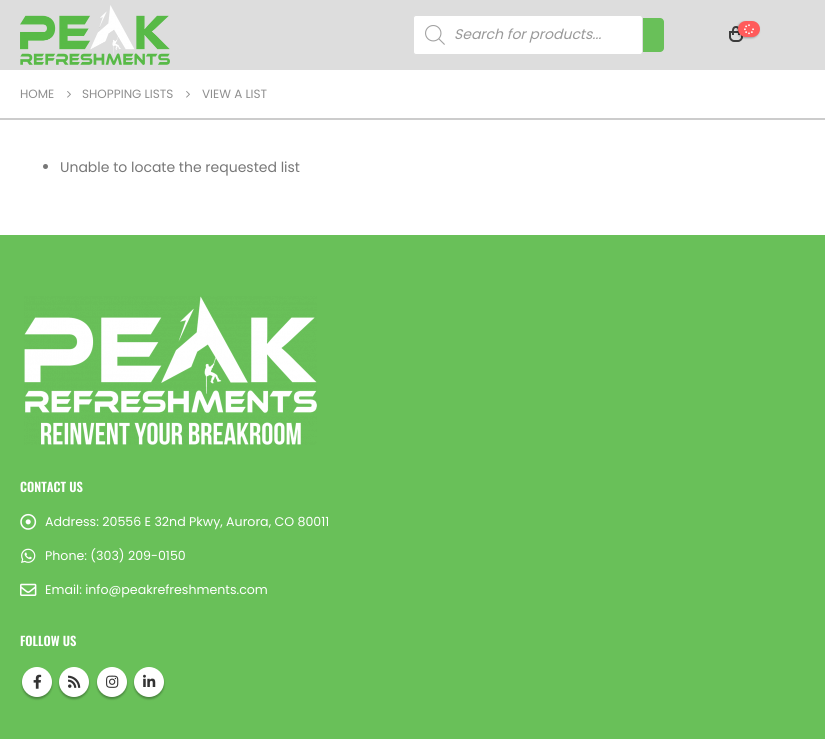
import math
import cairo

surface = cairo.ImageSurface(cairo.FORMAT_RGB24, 825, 739)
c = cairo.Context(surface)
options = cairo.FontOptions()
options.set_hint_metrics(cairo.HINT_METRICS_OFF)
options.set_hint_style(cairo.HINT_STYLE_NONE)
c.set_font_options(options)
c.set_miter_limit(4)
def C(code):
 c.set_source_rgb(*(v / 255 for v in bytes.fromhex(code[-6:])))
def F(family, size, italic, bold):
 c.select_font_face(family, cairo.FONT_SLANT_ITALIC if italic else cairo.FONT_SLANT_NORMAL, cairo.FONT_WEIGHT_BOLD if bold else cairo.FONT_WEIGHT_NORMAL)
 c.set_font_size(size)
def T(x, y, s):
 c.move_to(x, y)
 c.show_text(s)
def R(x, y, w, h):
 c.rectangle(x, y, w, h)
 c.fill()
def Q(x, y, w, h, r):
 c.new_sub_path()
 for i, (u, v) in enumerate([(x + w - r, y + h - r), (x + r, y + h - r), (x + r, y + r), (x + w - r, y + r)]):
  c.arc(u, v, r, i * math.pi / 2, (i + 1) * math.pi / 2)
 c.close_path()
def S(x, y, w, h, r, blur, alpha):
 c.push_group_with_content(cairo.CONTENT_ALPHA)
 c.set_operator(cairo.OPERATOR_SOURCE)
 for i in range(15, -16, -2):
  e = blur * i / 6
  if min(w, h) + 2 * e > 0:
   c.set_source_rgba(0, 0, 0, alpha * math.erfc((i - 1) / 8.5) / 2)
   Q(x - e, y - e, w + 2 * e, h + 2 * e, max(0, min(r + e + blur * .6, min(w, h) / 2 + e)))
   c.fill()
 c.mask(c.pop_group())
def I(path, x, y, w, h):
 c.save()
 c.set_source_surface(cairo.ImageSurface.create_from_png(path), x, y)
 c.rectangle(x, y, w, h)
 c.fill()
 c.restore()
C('ffffff')
c.paint()
C('dddddd')
R(0,0,825,70)
I('1.png',20,5,150,60)
C('69c059')
Q(542,18,122,34,4)
c.fill()
C('ffffff')
Q(413.5,15.5,229,39,2.5)
c.fill_preserve()
C('dddddd')
c.set_line_width(1)
c.stroke()
I('2.png',425,25,20,20)
F('Poppins',14,1,0)
C('999999')
T(454,39,'Search for products...')
c.new_path()
c.move_to(730,32)
c.line_to(742,32)
c.line_to(742,37)
c.curve_to(742,39,740,41,738,41)
c.line_to(734,41)
c.curve_to(732,41,730,39,730,37)
c.close_path()
C('3c3c3c')
c.set_line_width(2)
c.stroke()
c.set_fill_rule(cairo.FILL_RULE_EVEN_ODD)
c.new_path()
c.move_to(736,26)
c.curve_to(741,26,740,32,740,35)
c.line_to(732,35)
c.curve_to(732,32,731,26,736,26)
c.close_path()
c.move_to(736,28)
c.curve_to(739,28,738,33,738,35)
c.line_to(734,35)
c.curve_to(734,33,733,28,736,28)
c.close_path()
c.fill()
C('000000')
S(737,22,22,16,8,1,.3)
C('ff5b5b')
Q(738,21,22,16,8)
c.fill()
I('3.png',744,24,10,11)
C('cccccc')
R(0,118,825,2)
F('Poppins',12,0,0)
C('8e8e8e')
T(20,98,'HOME')
I('4.png',67,91,4,7)
T(82,98,'SHOPPING LISTS')
I('4.png',186,91,4,7)
T(202,98,'VIEW A LIST')
C('777777')
c.new_path()
c.arc(45.5,166.5,2.5,0,2 * math.pi)
c.fill()
F('Poppins',14,0,0)
T(60,172,'Unable to locate the requested list')
C('69c059')
R(0,235,825,504)
I('5.png',24,296,293,149)
F('Oswald SemiBold',12.6,0,0)
C('ffffff')
T(20,492,'CONTACT US')
I('6.png',20,513,17,17)
F('Poppins',12.6,0,0)
T(45,526,'Address: 20556 E 32nd Pkwy, Aurora, CO 80011')
I('7.png',21,548,15,15)
T(45,560,'Phone: (303) 209-0150')
I('8.png',20,583,17,13)
T(45,594,'Email: info@peakrefreshments.com')
F('Oswald SemiBold',12.6,0,0)
T(20,646,'FOLLOW US')
C('000000')
S(22,669,30,30,15,1,.3)
C('ffffff')
c.arc(37,682,15,0,2 * math.pi)
c.fill()
I('9.png',33,674,9,15)
C('000000')
S(59,669,30,30,15,1,.3)
C('ffffff')
c.arc(74,682,15,0,2 * math.pi)
c.fill()
I('10.png',68,675,13,13)
C('000000')
S(97,669,30,30,15,1,.3)
C('ffffff')
c.arc(112,682,15,0,2 * math.pi)
c.fill()
I('11.png',106,675,13,13)
C('000000')
S(134,669,30,30,15,1,.3)
C('ffffff')
c.arc(149,682,15,0,2 * math.pi)
c.fill()
I('12.png',143,674,13,13)
surface.write_to_png('o.png')
